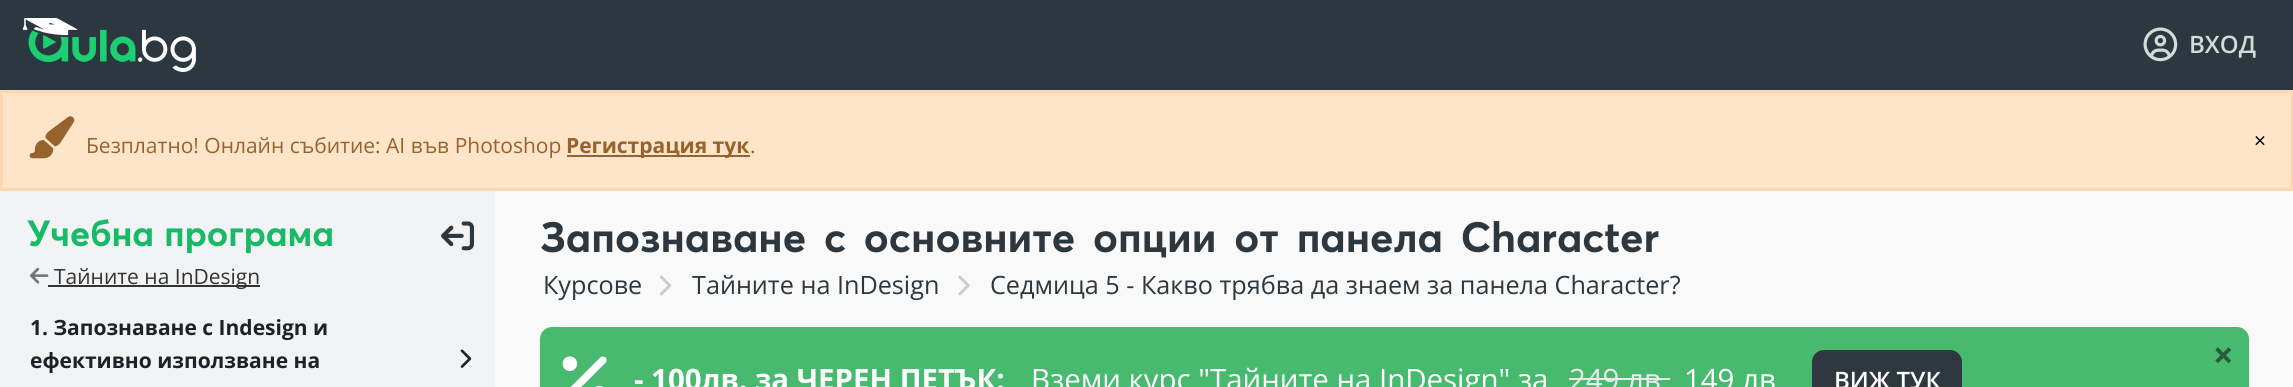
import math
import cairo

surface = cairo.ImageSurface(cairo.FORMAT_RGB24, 2293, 387)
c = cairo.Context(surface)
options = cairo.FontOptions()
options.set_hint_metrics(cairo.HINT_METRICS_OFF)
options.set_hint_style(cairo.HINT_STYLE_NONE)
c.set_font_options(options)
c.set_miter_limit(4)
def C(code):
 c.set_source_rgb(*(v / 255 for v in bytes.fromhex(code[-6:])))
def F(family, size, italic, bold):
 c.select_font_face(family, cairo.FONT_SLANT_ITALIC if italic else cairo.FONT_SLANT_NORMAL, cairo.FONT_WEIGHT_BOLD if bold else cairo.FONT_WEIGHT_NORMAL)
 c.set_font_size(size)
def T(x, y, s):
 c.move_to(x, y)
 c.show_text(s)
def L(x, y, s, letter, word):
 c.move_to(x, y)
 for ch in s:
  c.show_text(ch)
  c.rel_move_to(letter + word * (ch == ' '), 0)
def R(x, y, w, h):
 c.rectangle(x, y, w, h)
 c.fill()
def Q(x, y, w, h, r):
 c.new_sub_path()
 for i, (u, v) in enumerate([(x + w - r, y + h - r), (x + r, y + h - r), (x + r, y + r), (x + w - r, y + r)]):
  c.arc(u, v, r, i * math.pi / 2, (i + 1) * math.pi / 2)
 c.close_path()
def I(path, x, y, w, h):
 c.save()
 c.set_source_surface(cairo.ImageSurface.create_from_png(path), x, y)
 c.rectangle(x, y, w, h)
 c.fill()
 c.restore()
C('f9f9f9')
c.paint()
C('2d373f')
R(0,0,2293,90)
I('1.png',23,18,173,54)
I('2.png',2143,27,35,35)
F('Open Sans SemiBold',24,0,0)
C('d3dbd7')
T(2189,53,'ВХОД')
C('fee4c9')
c.rectangle(1.5,91.5,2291,98)
c.fill_preserve()
C('fed7b0')
c.set_line_width(3)
c.stroke()
I('3.png',29,116,46,43)
F('Open Sans',21,0,0)
C('97632d')
T(86,153,'Безплатно! Онлайн събитие: AI във Photoshop')
R(567,155,183,2)
F('Open Sans',21,0,1)
T(566,153,'Регистрация тук')
F('Open Sans',21,0,0)
T(750,153,'.')
C('000000')
T(2254,148,'×')
C('f2f3f5')
R(0,191,495,196)
F('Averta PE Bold',36,0,1)
C('18ba66')
L(27,246,'Учебна програма',0,1)
I('4.png',441,221,33,30)
I('5.png',30,267,19,17)
C('333333')
R(48,285,212,2)
F('Open Sans',21,0,0)
T(54,284,'Тайните на InDesign')
F('Open Sans',21,0,1)
C('1d2228')
T(30,335,'1. Запознаване с Indesign и')
T(30,368,'ефективно използване на')
I('6.png',460,349,12,19)
F('Averta PE Bold',42,0,1)
C('2d373f')
L(540,252,'Запознаване с основните опции от панела Character',0,7)
F('Open Sans',25.2,0,0)
T(543,294,'Курсове')
I('7.png',660,275,12,21)
T(692,294,'Тайните на InDesign')
I('8.png',958,275,12,21)
T(990,294,'Седмица 5 - Какво трябва да знаем за панела Character?')
C('48ba70')
Q(540,327,1709,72,12)
c.fill()
I('9.png',562,356,45,31)
F('Open Sans',29.4,0,1)
C('ffffff')
T(634,390,'- 100лв. за ЧЕРЕН ПЕТЪК:')
F('Open Sans',29.4,0,0)
T(1031,390,'Вземи курс "Тайните на InDesign" за')
C('ebebeb')
T(1569,390,'249 лв')
R(1569,378,101,2)
C('ffffff')
T(1684,390,'149 лв')
C('2f373f')
Q(1812,350,150,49,12)
c.fill()
F('Open Sans SemiBold',24,0,0)
C('ffffff')
T(1834,389,'ВИЖ ТУК')
F('Open Sans',36,0,1)
C('245d38')
T(2213,368,'×')
surface.write_to_png('o.png')
